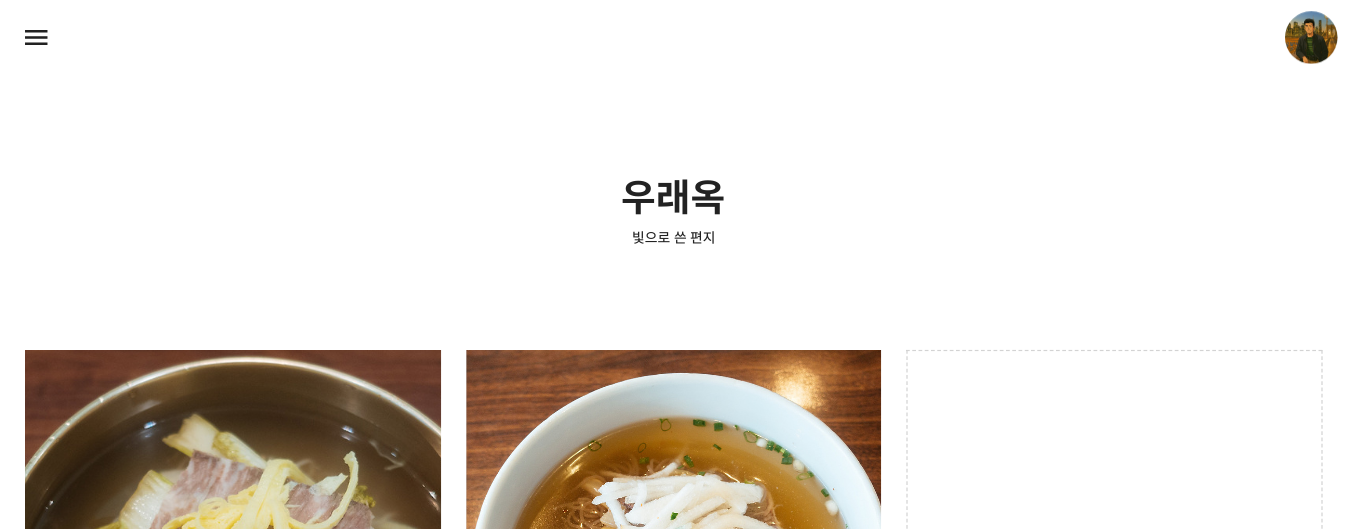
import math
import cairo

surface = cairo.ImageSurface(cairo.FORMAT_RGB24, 1347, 529)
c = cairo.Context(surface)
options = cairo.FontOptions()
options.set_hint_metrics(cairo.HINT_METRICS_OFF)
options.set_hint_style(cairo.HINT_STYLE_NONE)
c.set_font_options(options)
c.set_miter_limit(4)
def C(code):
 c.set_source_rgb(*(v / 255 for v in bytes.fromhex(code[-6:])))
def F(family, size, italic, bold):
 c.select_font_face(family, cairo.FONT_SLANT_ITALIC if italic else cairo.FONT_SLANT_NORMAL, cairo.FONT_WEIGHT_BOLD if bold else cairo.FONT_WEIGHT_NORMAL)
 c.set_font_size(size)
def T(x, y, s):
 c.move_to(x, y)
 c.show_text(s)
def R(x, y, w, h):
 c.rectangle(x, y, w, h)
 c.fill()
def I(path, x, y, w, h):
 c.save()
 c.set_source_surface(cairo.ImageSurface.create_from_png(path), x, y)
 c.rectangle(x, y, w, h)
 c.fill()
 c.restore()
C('ffffff')
c.paint()
I('1.png',25,30,23,15)
C('f4f4f4')
c.arc(1311.5,37.5,26.5,0,2 * math.pi)
c.fill()
I('2.png',1285,11,53,53)
F('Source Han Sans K',41,0,1)
C('222222')
T(621,212,'우래옥')
F('Source Han Sans K',15,0,0)
T(632,243,'빛으로')
T(674,243,'쓴')
T(690,243,'편지')
I('3.png',25,350,417,179)
C('dcdcdc')
R(466,350,1,179)
I('4.png',466,350,416,179)
c.new_path()
c.move_to(906,350.5)
c.line_to(1322.5,350.5)
C('d3d3d3')
c.set_line_width(1.2)
c.set_dash([3.75,2.5])
c.stroke()
c.new_path()
c.move_to(1322,350)
c.line_to(1322,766)
c.stroke()
c.new_path()
c.move_to(907,350)
c.line_to(907,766)
c.stroke()
surface.write_to_png('o.png')
